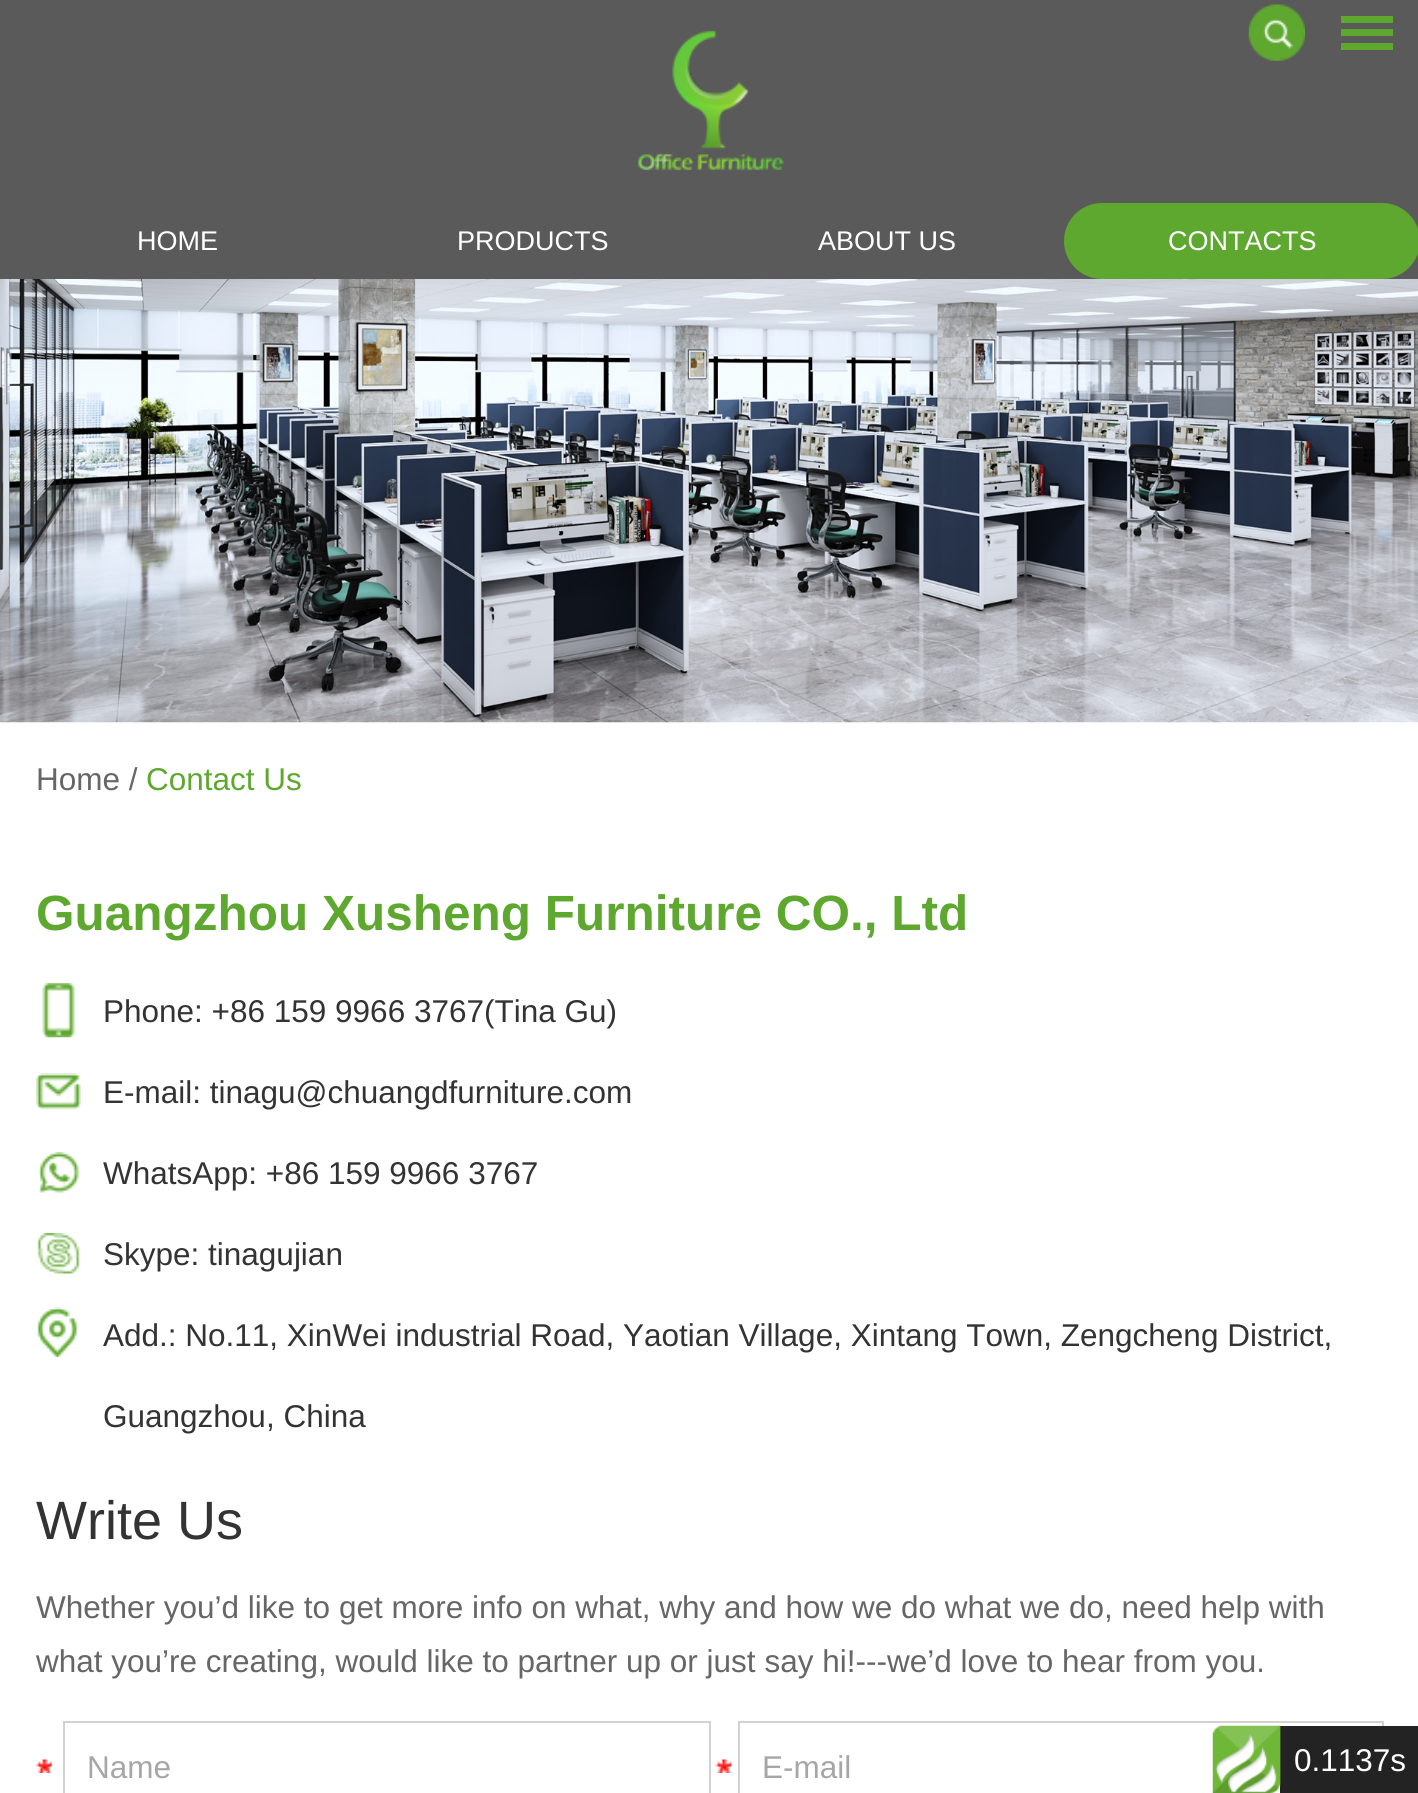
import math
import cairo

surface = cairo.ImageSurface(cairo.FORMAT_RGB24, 1418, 1793)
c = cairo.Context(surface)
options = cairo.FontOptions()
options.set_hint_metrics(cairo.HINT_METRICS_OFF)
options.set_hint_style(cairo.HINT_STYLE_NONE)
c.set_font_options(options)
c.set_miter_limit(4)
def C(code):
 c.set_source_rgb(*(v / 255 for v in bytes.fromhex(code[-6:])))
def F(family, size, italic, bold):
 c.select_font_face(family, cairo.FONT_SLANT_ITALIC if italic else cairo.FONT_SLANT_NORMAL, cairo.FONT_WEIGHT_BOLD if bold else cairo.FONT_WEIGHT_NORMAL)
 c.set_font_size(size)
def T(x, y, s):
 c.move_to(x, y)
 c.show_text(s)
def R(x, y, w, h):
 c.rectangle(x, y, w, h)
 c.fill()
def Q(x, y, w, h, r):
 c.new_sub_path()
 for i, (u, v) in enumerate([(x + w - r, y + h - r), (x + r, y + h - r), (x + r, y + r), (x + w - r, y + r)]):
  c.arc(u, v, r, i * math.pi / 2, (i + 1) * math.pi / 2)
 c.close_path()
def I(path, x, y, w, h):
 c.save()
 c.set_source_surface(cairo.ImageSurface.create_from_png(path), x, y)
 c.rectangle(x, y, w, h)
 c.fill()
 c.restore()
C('ffffff')
c.paint()
C('5a5a5a')
R(0,0,1418,279)
C('5ea830')
R(1341,16,52,7)
R(1341,29,52,7)
R(1341,43,52,7)
I('1.png',637,30,147,141)
I('2.png',1248,4,57,57)
F('Liberation Sans',27,0,0)
C('ffffff')
T(137,250,'HOME')
T(457,250,'PRODUCTS')
T(818,250,'ABOUT US')
C('5ea830')
Q(1064,203,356,76,38)
c.fill()
C('ffffff')
T(1168,250,'CONTACTS')
I('3.png',0,279,1418,444)
F('Liberation Sans',31.5,0,0)
C('666666')
T(36,790,'Home /')
C('5ea830')
T(146,790,'Contact Us')
F('Liberation Sans',49.5,0,1)
T(36,930,'Guangzhou Xusheng Furniture CO., Ltd')
I('4.png',42,983,33,55)
F('Liberation Sans',31.5,0,0)
C('333333')
T(103,1022,'Phone: +86 159 9966 3767(Tina Gu)')
I('5.png',36,1073,45,37)
T(103,1103,'E-mail: tinagu@chuangdfurniture.com')
I('6.png',38,1152,42,41)
T(103,1184,'WhatsApp: +86 159 9966 3767')
I('7.png',37,1233,43,41)
T(103,1265,'Skype: tinagujian')
I('8.png',37,1307,41,50)
T(103,1346,'Add.: No.11, XinWei industrial Road, Yaotian Village, Xintang Town, Zengcheng District,')
T(103,1427,'Guangzhou, China')
F('Liberation Sans',54,0,0)
T(36,1539,'Write Us')
F('Liberation Sans',31.5,0,0)
C('666666')
T(36,1618,'Whether you’d like to get more info on what, why and how we do what we do, need help with')
T(36,1672,'what you’re creating, would like to partner up or just say hi!---we’d love to hear from you.')
I('9.png',36,1759,16,14)
c.rectangle(64,1722,646,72)
C('d2d2d2')
c.stroke()
C('a6a6a6')
T(87,1778,'Name')
I('10.png',715,1759,17,14)
c.rectangle(739,1722,644,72)
C('d2d2d2')
c.stroke()
C('a6a6a6')
T(762,1778,'E-mail')
C('232323')
R(1280,1726,138,67)
I('11.png',1212,1725,69,68)
C('ffffff')
T(1294,1771,'0.1137s')
surface.write_to_png('o.png')
